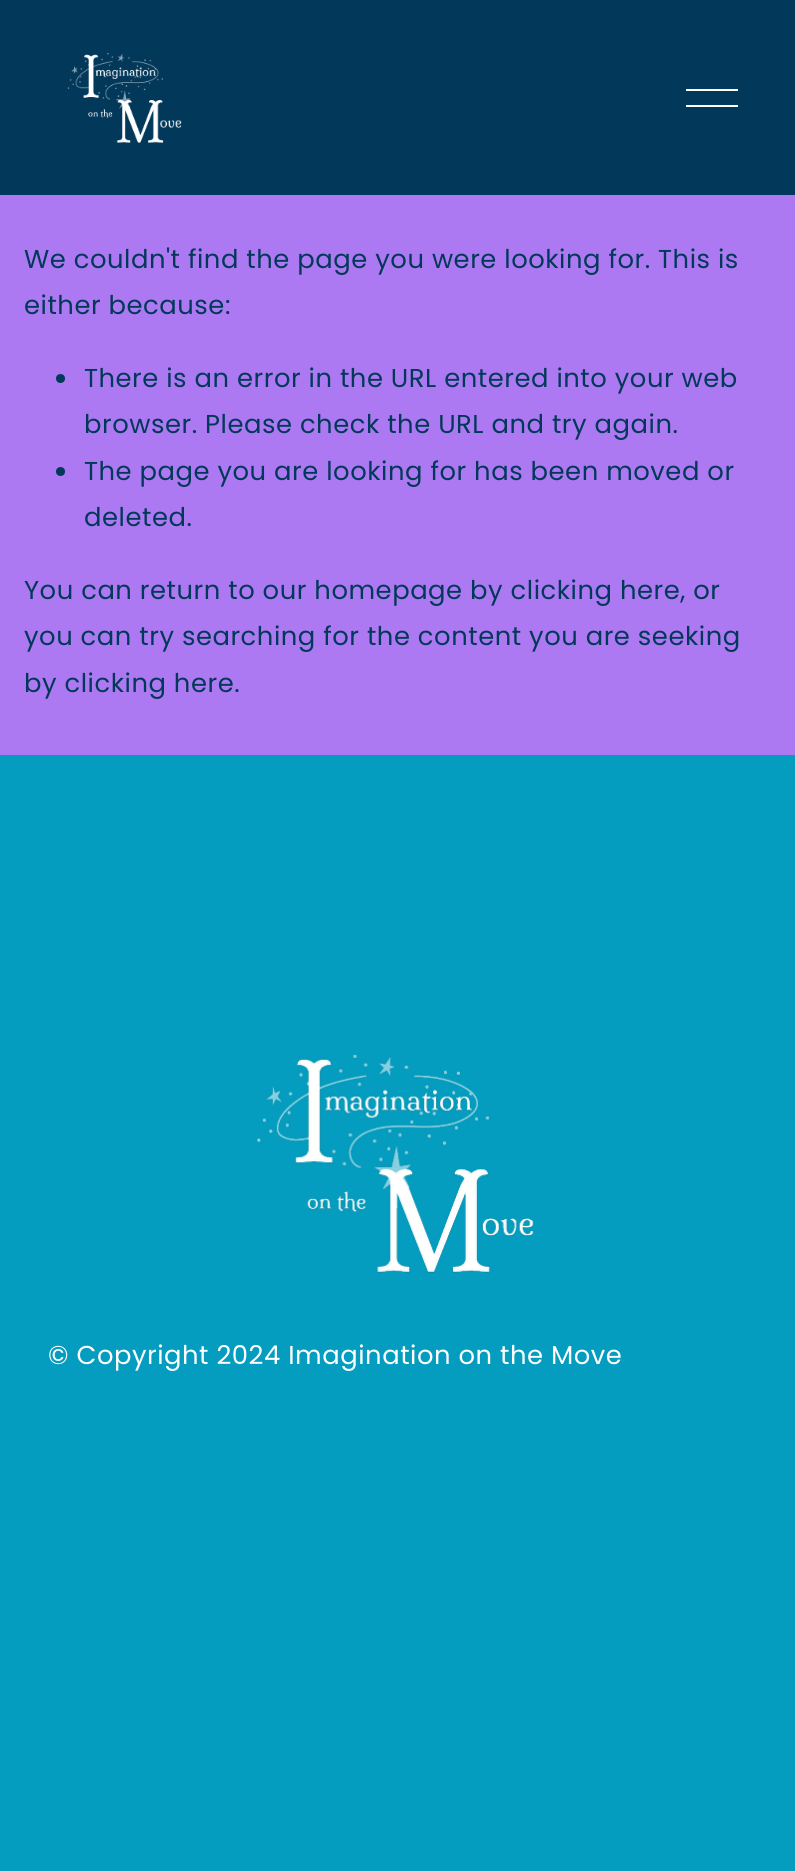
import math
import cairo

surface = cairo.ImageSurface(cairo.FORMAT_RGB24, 795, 1871)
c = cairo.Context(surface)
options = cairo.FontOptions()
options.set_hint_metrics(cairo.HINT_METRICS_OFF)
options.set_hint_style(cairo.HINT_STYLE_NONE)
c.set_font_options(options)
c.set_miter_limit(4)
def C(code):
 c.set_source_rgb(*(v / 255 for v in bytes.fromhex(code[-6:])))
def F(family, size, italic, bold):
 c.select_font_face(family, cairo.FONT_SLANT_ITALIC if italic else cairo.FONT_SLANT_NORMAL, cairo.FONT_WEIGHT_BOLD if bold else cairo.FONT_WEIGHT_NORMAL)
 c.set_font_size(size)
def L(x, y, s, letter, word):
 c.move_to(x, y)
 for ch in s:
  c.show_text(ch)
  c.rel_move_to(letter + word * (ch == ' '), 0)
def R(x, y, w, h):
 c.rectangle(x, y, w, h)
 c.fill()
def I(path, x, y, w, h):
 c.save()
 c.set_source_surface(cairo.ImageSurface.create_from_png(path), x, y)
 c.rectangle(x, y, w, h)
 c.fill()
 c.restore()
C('ac79f2')
c.paint()
C('023859')
R(0,0,795,195)
I('1.png',67,52,115,91)
C('ffffff')
R(686,89,52,2)
R(686,105,52,2)
F('Poppins',25.85,0,0)
C('023859')
L(24,268,'We couldn\'t find the page you were looking for. This is',.52,0)
L(24,314,'either because:',.52,0)
c.new_path()
c.arc(60.5,378.5,4.5,0,2 * math.pi)
c.fill()
L(84,387,'There is an error in the URL entered into your web',.52,0)
L(84,433,'browser. Please check the URL and try again.',.52,0)
c.new_path()
c.arc(60.5,471.5,4.5,0,2 * math.pi)
c.fill()
L(84,480,'The page you are looking for has been moved or',.52,0)
L(84,526,'deleted.',.52,0)
L(24,599,'You can return to our homepage by clicking here, or',.52,0)
L(24,645,'you can try searching for the content you are seeking',.52,0)
L(24,692,'by clicking here.',.52,0)
C('049dbf')
R(0,755,795,1116)
I('2.png',257,1054,277,219)
C('ffffff')
L(48,1364,'© Copyright 2024 Imagination on the Move',.52,0)
surface.write_to_png('o.png')
